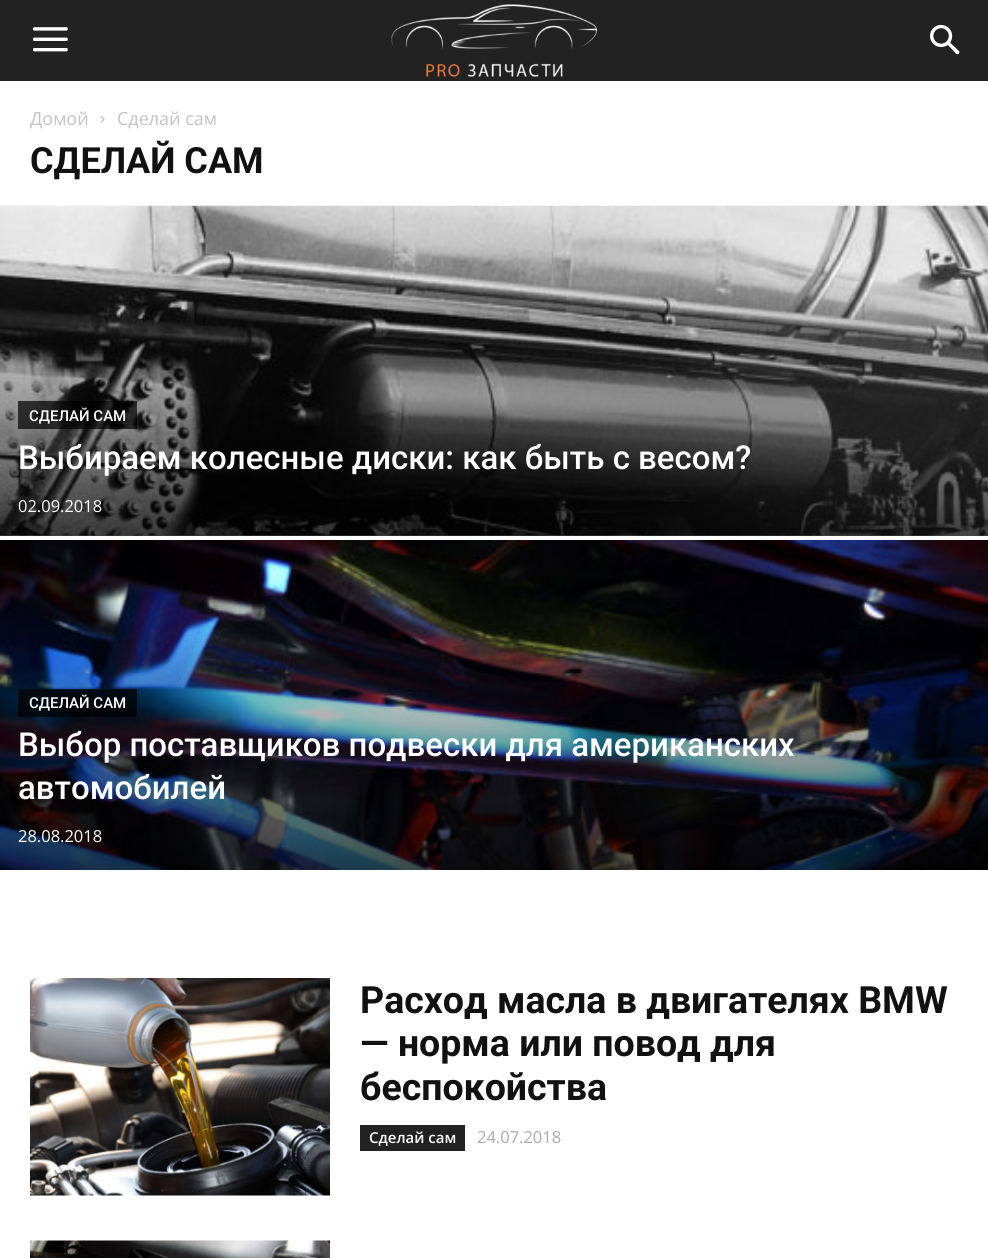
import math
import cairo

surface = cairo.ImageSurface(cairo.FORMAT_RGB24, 988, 1258)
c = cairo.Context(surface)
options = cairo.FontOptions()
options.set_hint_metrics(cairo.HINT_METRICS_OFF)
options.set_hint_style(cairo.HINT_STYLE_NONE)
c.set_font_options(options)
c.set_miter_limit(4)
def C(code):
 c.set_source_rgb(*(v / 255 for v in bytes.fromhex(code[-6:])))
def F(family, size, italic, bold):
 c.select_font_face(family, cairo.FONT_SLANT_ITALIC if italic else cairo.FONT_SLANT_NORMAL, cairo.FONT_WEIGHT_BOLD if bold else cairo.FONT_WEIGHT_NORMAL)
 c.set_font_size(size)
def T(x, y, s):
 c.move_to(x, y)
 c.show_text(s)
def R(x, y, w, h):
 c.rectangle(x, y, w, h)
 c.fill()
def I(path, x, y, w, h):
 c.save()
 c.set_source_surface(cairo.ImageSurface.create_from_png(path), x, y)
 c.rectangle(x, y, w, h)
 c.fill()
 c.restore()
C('ffffff')
c.paint()
C('222222')
R(0,0,988,81)
I('1.png',33,27,35,25)
I('2.png',391,4,206,73)
I('3.png',930,24,30,31)
F('Open Sans',18,0,0)
C('c3c3c3')
T(30,125,'Домой')
I('4.png',100,115,5,8)
T(117,125,'Сделай сам')
F('Roboto',36,0,1)
C('111111')
T(30,173,'СДЕЛАЙ САМ')
C('e5e5e5')
R(0,535,988,1)
I('5.png',0,205,988,331)
gradient = cairo.LinearGradient(494,106,494,536)
gradient.add_color_stop_rgba(.4,0,0,0,0)
gradient.add_color_stop_rgba(1,0,0,0,.7)
c.set_source(gradient)
R(0,286,988,250)
c.set_source_rgba(0,0,0,0.7)
R(18,401,119,28)
F('Roboto Medium',15,0,0)
C('ffffff')
T(29,421,'СДЕЛАЙ САМ')
F('Roboto Medium',33,0,0)
T(18,469,'Выбираем колесные диски: как быть с весом?')
F('Open Sans',16.5,0,0)
T(18,512,'02.09.2018')
I('6.png',0,540,988,330)
c.set_source_rgba(0,0,0,0.7)
R(18,689,119,28)
F('Roboto Medium',15,0,0)
C('ffffff')
T(29,708,'СДЕЛАЙ САМ')
F('Roboto Medium',33,0,0)
T(18,756,'Выбор поставщиков подвески для американских')
T(18,799,'автомобилей')
F('Open Sans',16.5,0,0)
T(18,842,'28.08.2018')
I('7.png',30,978,300,218)
F('Roboto',37.5,0,1)
C('111111')
T(360,1013,'Расход масла в двигателях BMW')
T(360,1056,'— норма или повод для')
T(360,1100,'беспокойства')
C('222222')
R(360,1125,105,26)
F('Open Sans SemiBold',15,0,0)
C('ffffff')
T(369,1143,'Сделай сам')
F('Open Sans',16.5,0,0)
C('aaaaaa')
T(477,1143,'24.07.2018')
I('8.png',30,1240,300,18)
surface.write_to_png('o.png')
